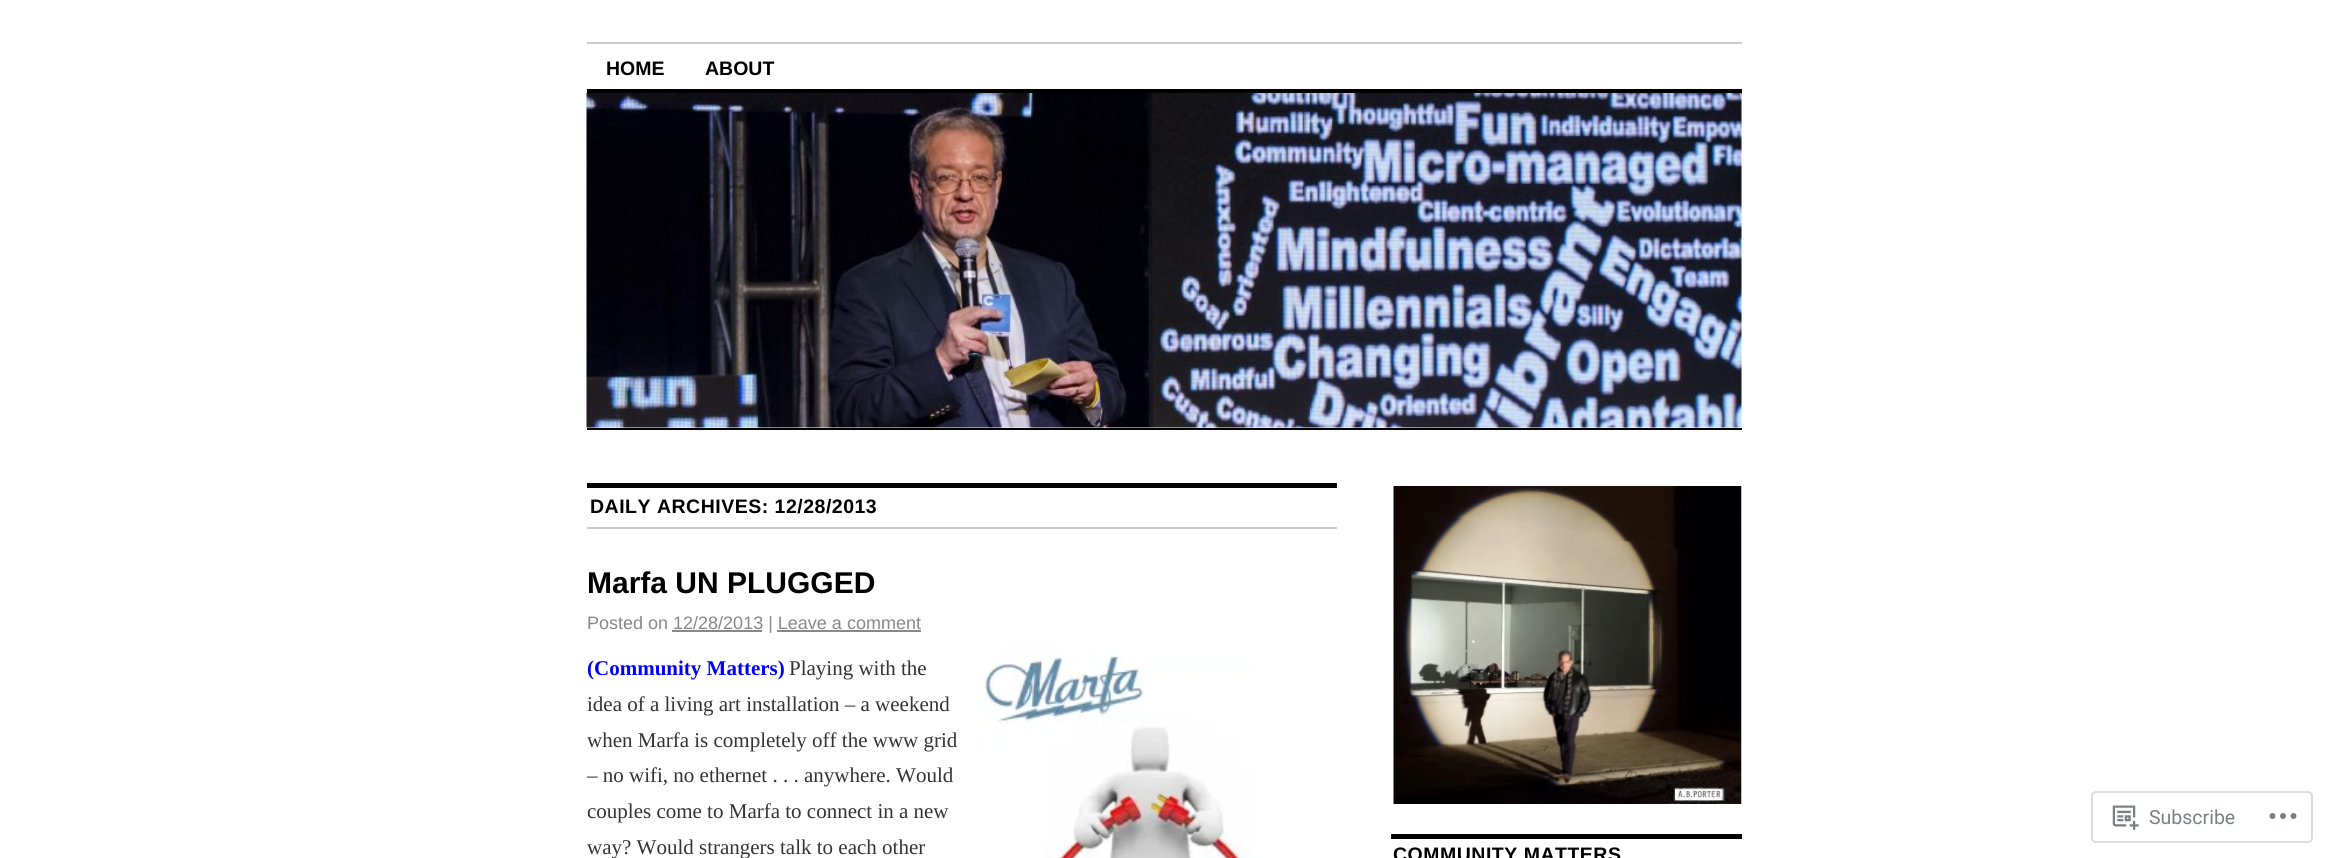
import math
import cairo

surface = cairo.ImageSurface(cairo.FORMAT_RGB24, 2327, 858)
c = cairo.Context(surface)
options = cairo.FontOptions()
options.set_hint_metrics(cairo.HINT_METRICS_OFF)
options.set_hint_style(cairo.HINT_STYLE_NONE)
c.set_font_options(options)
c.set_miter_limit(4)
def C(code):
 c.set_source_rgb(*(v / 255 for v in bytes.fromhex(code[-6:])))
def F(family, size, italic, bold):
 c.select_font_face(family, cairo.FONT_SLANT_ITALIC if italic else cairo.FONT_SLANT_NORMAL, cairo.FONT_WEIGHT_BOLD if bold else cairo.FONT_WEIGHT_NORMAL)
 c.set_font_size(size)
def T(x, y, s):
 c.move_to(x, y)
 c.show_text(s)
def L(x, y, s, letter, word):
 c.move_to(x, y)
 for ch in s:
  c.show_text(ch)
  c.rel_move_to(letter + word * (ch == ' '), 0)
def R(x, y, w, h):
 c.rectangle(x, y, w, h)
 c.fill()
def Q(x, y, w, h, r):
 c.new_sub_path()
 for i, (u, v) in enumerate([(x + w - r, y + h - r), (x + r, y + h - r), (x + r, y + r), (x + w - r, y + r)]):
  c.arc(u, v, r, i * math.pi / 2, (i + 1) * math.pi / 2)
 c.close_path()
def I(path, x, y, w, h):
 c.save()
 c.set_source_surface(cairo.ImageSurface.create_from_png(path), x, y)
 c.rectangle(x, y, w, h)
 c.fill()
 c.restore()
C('ffffff')
c.paint()
C('cccccc')
R(587,42,1155,2)
F('Liberation Sans',19.5,0,1)
C('000000')
T(606,75,'HOME')
T(705,75,'ABOUT')
R(587,89,1155,5)
I('1.png',586,93,1156,335)
R(587,428,1155,2)
R(587,483,750,5)
C('cccccc')
R(587,527,750,2)
C('000000')
L(590,513,'DAILY ARCHIVES: 12/28/2013',.5,0)
F('Liberation Sans',30,0,1)
T(587,593,'Marfa UN PLUGGED')
F('Liberation Sans',18,0,0)
C('888888')
T(587,629,'Posted on 12/28/2013 | Leave a comment')
R(672,630,90,2)
R(777,630,144,2)
F('Liberation Serif',21,0,1)
C('0000ff')
T(587,675,'(Community Matters)')
I('2.png',976,651,278,207)
F('Liberation Serif',21,0,0)
C('333333')
T(789,675,'Playing with the')
T(587,711,'idea of a living art installation – a weekend')
T(587,747,'when Marfa is completely off the www grid')
T(587,782,'– no wifi, no ethernet . . . anywhere. Would')
T(587,818,'couples come to Marfa to connect in a new')
T(587,854,'way? Would strangers talk to each other')
I('3.png',1393,486,349,318)
C('000000')
R(1391,834,351,5)
F('Liberation Sans',19.5,0,1)
L(1393,861,'COMMUNITY MATTERS',.5,0)
Q(2092,792,220,50,4)
C('dddddf')
c.stroke()
I('4.png',2112,805,27,25)
F('Roboto',19.5,0,0)
C('7b7f85')
T(2149,824,'Subscribe')
I('5.png',2269,813,28,6)
surface.write_to_png('o.png')
